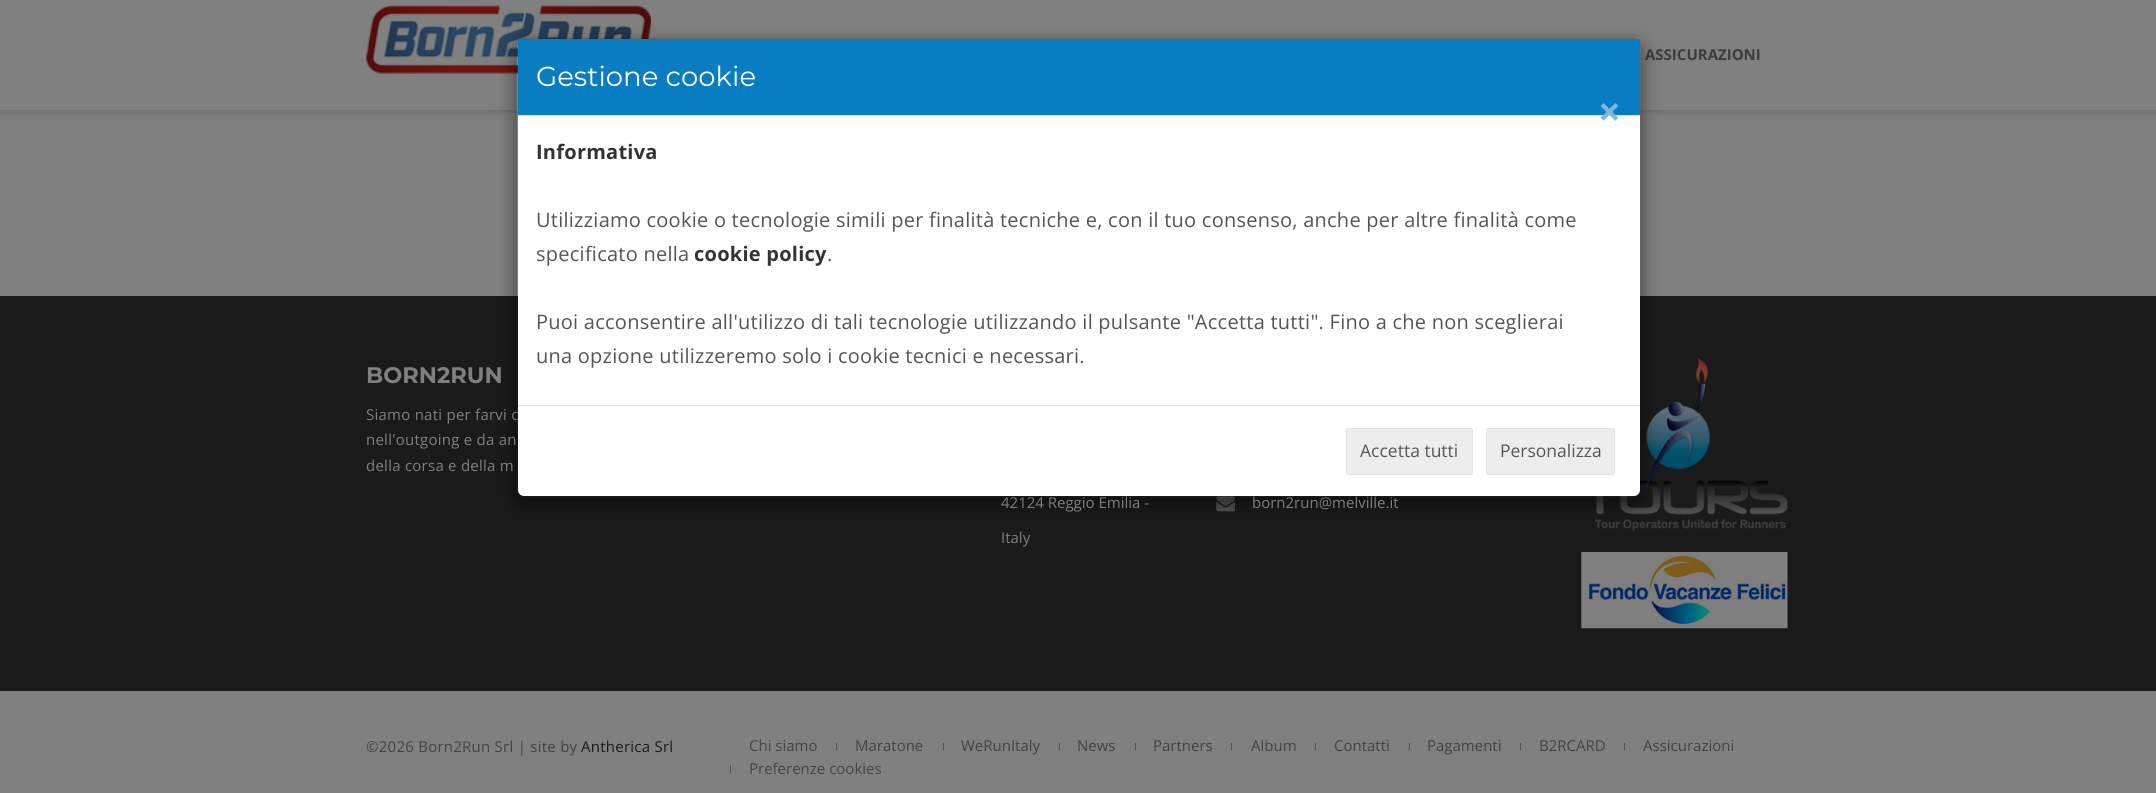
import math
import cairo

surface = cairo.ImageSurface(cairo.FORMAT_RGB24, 2156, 793)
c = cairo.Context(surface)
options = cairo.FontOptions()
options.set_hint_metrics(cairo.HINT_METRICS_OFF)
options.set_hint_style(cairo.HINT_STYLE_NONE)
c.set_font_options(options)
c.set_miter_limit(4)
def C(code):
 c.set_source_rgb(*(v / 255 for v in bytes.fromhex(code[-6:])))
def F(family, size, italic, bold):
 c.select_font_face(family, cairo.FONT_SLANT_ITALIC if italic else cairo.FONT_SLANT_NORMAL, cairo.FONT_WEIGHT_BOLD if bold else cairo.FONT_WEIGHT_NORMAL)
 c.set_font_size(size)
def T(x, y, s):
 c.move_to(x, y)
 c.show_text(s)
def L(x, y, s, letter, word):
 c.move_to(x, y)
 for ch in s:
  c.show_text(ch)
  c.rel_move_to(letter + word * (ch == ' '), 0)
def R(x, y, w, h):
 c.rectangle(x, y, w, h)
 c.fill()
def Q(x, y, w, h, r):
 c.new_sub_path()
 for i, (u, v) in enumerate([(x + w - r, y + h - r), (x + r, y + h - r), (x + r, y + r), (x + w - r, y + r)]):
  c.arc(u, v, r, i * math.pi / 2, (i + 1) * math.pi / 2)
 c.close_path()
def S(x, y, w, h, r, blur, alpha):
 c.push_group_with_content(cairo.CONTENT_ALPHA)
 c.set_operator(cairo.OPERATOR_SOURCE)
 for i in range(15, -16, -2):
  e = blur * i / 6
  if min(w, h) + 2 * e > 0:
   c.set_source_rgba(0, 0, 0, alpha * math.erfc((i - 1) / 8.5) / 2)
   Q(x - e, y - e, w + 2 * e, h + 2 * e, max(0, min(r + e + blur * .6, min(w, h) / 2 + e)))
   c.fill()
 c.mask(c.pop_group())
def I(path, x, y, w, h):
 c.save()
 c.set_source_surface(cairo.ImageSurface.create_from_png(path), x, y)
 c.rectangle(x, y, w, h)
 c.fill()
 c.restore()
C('808080')
c.paint()
C('000000')
S(-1,-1,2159,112,0,4,.2)
C('808080')
R(0,0,2156,110)
I('1.png',366,5,285,69)
F('Open Sans',15,0,1)
C('3c3c3c')
T(1645,60,'ASSICURAZIONI')
C('1a1a1a')
R(0,296,2156,395)
I('2.png',1594,358,194,173)
I('4.png',1216,496,19,16)
c.save()
c.set_fill_rule(cairo.FILL_RULE_EVEN_ODD)
c.new_path()
c.move_to(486,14)
c.line_to(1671,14)
c.line_to(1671,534)
c.line_to(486,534)
c.close_path()
c.move_to(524,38)
c.line_to(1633,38)
c.curve_to(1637.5,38,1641,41.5,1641,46)
c.line_to(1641,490)
c.curve_to(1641,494.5,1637.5,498,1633,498)
c.line_to(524,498)
c.curve_to(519.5,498,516,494.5,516,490)
c.line_to(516,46)
c.curve_to(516,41.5,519.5,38,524,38)
c.close_path()
c.clip()
C('000000')
S(516,44,1125,460,8,9.5,.5)
c.restore()
C('ffffff')
Q(518,39,1122,457,6)
c.fill()
F('Open Sans',15,0,0)
C('808080')
L(366,420,'Siamo nati per farvi c',.25,0)
T(1001,508,'42124 Reggio Emilia -')
T(1252,508,'born2run@melville.it')
Q(516.5,38.5,1124,459,7.5)
c.set_source_rgba(0,0,0,0.2)
c.set_line_width(1)
c.stroke()
C('087dc2')
c.new_path()
c.move_to(519,39)
c.line_to(1639,39)
c.curve_to(1639.5,39,1640,39.5,1640,40)
c.line_to(1640,116)
c.line_to(518,116)
c.line_to(518,40)
c.curve_to(518,39.5,518.5,39,519,39)
c.close_path()
c.fill()
C('e5e5e5')
R(518,115,1122,1)
F('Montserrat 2 Thin',27.5,0,0)
C('ffffff')
T(536,86,'Gestione cookie')
F('Open Sans',40,0,1)
C('7ab8dd')
T(1598,126,'×')
F('Open Sans',20,0,1)
C('333333')
L(536,159,'Informativa',.25,0)
F('Open Sans',20,0,0)
C('555555')
L(536,227,'Utilizziamo cookie o tecnologie simili per finalità tecniche e, con il tuo consenso, anche per altre finalità come',.25,0)
L(536,261,'specificato nella',.25,0)
F('Open Sans',20,0,1)
C('333333')
L(694,261,'cookie policy',.25,0)
F('Open Sans',20,0,0)
C('555555')
L(827,261,'.',.25,0)
L(536,329,'Puoi acconsentire all\'utilizzo di tali tecnologie utilizzando il pulsante "Accetta tutti". Fino a che non sceglierai',.25,0)
L(536,363,'una opzione utilizzeremo solo i cookie tecnici e necessari.',.25,0)
C('e5e5e5')
R(518,405,1122,1)
C('ededed')
Q(1346.5,428.5,126,46,2)
c.fill_preserve()
C('e3e3e3')
c.stroke()
F('Open Sans',17.5,0,0)
C('555555')
T(1360,457,'Accetta tutti')
C('ededed')
Q(1486.5,428.5,128,46,2)
c.fill_preserve()
C('e3e3e3')
c.stroke()
C('555555')
T(1500,457,'Personalizza')
F('Montserrat Thin',22.5,0,0)
C('808080')
T(366,383,'BORN2RUN')
F('Open Sans',15,0,0)
L(366,445,'nell\'outgoing e da an',.25,0)
L(366,471,'della corsa e della m',.25,0)
I('3.png',1581,552,207,77)
T(1001,543,'Italy')
C('434343')
L(366,752,'©2026 Born2Run Srl | site by',.25,0)
C('1a1a1a')
L(581,752,'Antherica Srl',.25,0)
C('434343')
T(749,751,'Chi siamo')
C('4d4d4d')
R(836,743,1,7)
C('434343')
T(855,751,'Maratone')
C('4d4d4d')
R(943,743,1,7)
C('434343')
T(961,751,'WeRunItaly')
C('4d4d4d')
R(1059,743,1,7)
C('434343')
T(1077,751,'News')
C('4d4d4d')
R(1135,743,1,7)
C('434343')
T(1153,751,'Partners')
C('4d4d4d')
R(1231,743,1,7)
C('434343')
T(1251,751,'Album')
C('4d4d4d')
R(1315,743,1,7)
C('434343')
T(1334,751,'Contatti')
C('4d4d4d')
R(1409,743,1,7)
C('434343')
T(1427,751,'Pagamenti')
C('4d4d4d')
R(1520,743,1,7)
C('434343')
T(1539,751,'B2RCARD')
C('4d4d4d')
R(1624,743,1,7)
C('434343')
T(1643,751,'Assicurazioni')
C('4d4d4d')
R(730,765,1,8)
C('434343')
T(749,774,'Preferenze cookies')
surface.write_to_png('o.png')
